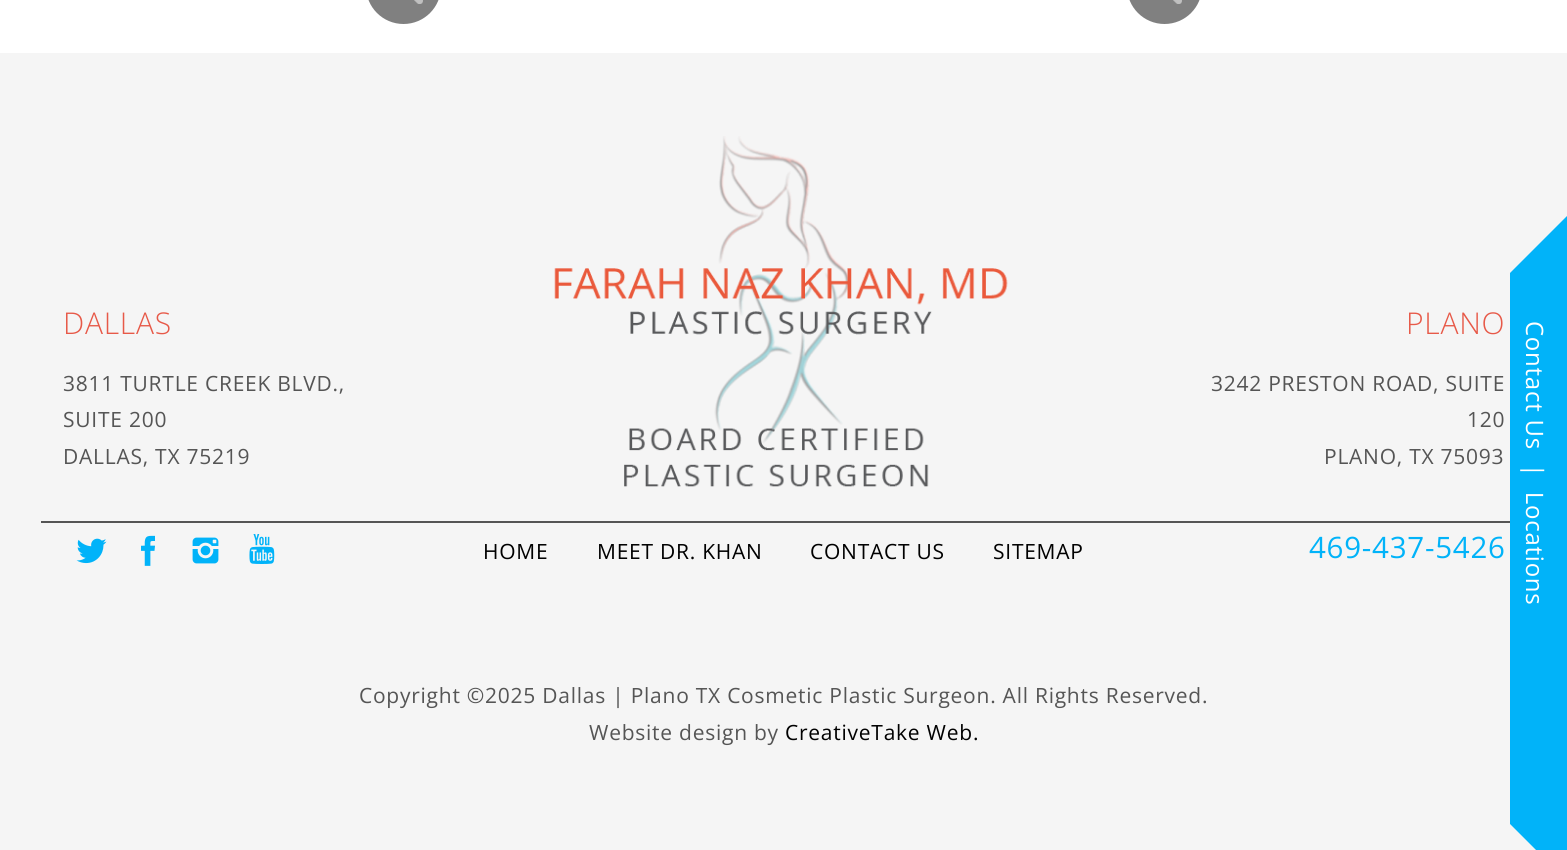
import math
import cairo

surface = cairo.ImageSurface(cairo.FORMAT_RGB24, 1567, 850)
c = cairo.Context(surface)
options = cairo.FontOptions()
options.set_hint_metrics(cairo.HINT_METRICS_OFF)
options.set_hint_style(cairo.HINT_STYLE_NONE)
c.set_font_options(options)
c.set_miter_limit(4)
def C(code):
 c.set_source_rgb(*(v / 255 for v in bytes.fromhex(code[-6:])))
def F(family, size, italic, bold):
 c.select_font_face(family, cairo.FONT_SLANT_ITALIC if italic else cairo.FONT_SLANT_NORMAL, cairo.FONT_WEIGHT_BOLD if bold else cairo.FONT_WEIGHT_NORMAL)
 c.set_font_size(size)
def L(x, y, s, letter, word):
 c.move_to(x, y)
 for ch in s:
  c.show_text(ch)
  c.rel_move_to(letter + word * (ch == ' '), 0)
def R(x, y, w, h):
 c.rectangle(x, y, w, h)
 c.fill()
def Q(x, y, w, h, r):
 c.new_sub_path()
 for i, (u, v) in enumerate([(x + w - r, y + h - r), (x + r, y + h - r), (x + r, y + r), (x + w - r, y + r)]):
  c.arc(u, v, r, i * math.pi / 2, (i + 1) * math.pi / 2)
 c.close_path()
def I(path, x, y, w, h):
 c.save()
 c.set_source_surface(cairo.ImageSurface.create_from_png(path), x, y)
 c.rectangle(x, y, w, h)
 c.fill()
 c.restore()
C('ffffff')
c.paint()
C('f5f5f5')
R(0,53,1567,797)
F('Open Sans Light',30,0,0)
C('e75948')
L(63,334,'DALLAS',.75,0)
F('Open Sans',21,0,0)
C('555555')
L(63,391,'3811 TURTLE CREEK BLVD.,',.75,0)
L(63,427,'SUITE 200',.75,0)
L(63,464,'DALLAS, TX 75219',.75,0)
I('1.png',554,136,454,351)
F('Open Sans Light',30,0,0)
C('e75948')
L(1406,334,'PLANO',.75,0)
F('Open Sans',21,0,0)
C('555555')
L(1211,391,'3242 PRESTON ROAD, SUITE',.75,0)
L(1467,427,'120',.75,0)
L(1324,464,'PLANO, TX 75093',.75,0)
R(41,521,1469,2)
I('2.png',76,538,31,26)
I('3.png',141,535,14,31)
I('4.png',192,537,27,27)
I('5.png',249,534,26,30)
C('000000')
L(483,559,'HOME',.75,0)
L(597,559,'MEET DR. KHAN',.75,0)
L(810,559,'CONTACT US',.75,0)
L(993,559,'SITEMAP',.75,0)
F('Open Sans',29.5,0,0)
C('01b3f9')
L(1309,558,'469-437-5426',.75,0)
F('Open Sans',21,0,0)
C('555555')
L(359,703,'Copyright ©2025 Dallas | Plano TX Cosmetic Plastic Surgeon. All Rights Reserved.',.75,0)
L(589,740,'Website design by',.75,0)
C('000000')
L(785,740,'CreativeTake Web.',.75,0)
C('808080')
Q(366,-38,75,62,37.5)
c.fill()
I('6.png',414,0,9,4)
Q(1127,-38,75,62,37.5)
c.fill()
I('6.png',1173,0,9,4)
C('01b3f9')
c.new_path()
c.move_to(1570,213)
c.line_to(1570,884)
c.line_to(1510,824)
c.line_to(1510,273)
c.close_path()
c.fill()
F('Open Sans',24,0,0)
C('ffffff')
c.save()
c.translate(1526,321)
c.rotate(90 * math.pi / 180)
L(0,0,'Contact Us  |  Locations',.75,0)
c.restore()
surface.write_to_png('o.png')
